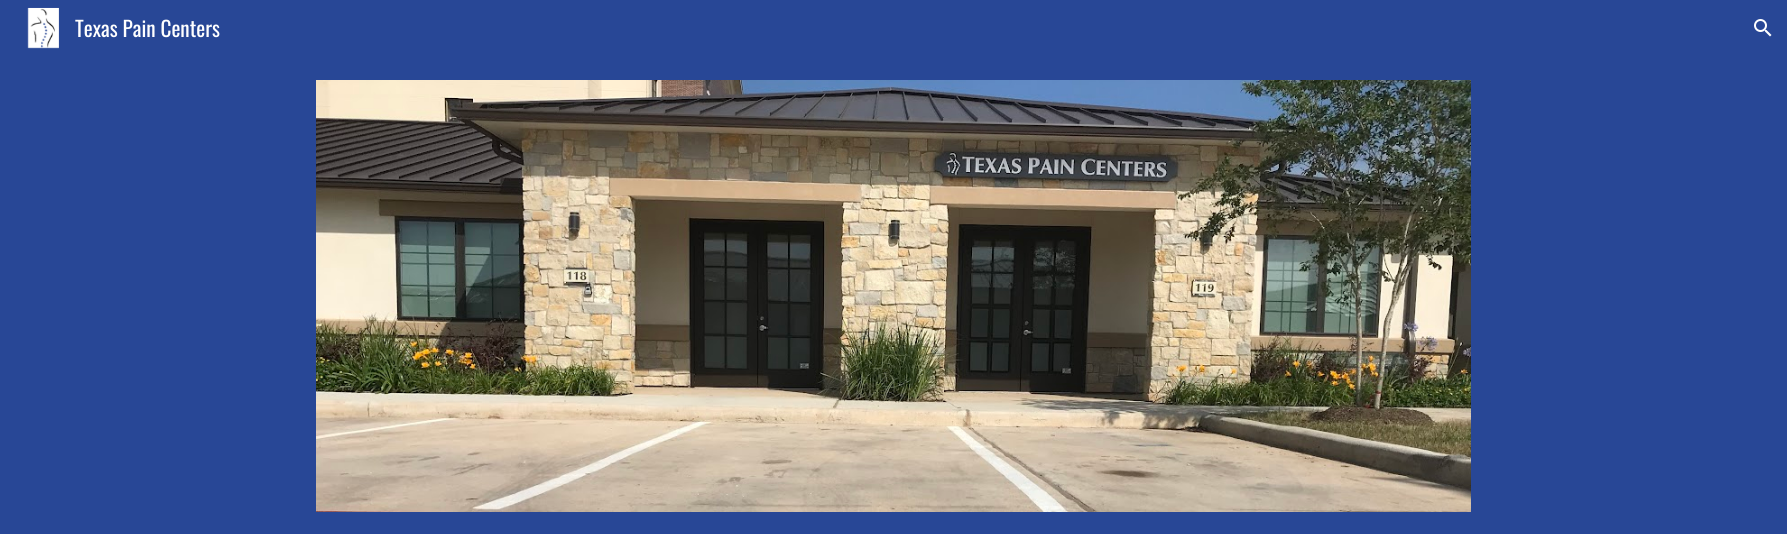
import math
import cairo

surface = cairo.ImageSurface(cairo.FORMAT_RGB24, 1787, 534)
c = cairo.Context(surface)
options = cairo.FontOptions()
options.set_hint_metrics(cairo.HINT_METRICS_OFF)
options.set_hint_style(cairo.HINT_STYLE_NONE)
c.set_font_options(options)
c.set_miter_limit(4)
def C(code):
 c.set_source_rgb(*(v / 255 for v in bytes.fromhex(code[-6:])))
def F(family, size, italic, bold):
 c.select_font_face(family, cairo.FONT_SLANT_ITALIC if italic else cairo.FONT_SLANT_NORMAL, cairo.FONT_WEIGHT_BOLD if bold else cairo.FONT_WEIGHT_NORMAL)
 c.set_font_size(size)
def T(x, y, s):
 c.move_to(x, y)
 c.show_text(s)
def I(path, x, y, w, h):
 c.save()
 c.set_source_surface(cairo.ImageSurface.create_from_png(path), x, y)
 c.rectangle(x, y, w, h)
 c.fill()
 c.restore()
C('284796')
c.paint()
I('1.png',27,7,32,42)
F('Oswald',21.25,0,0)
C('ffffff')
T(75,37,'Texas Pain Centers')
I('2.png',1754,19,18,18)
I('3.png',316,80,1155,432)
surface.write_to_png('o.png')
